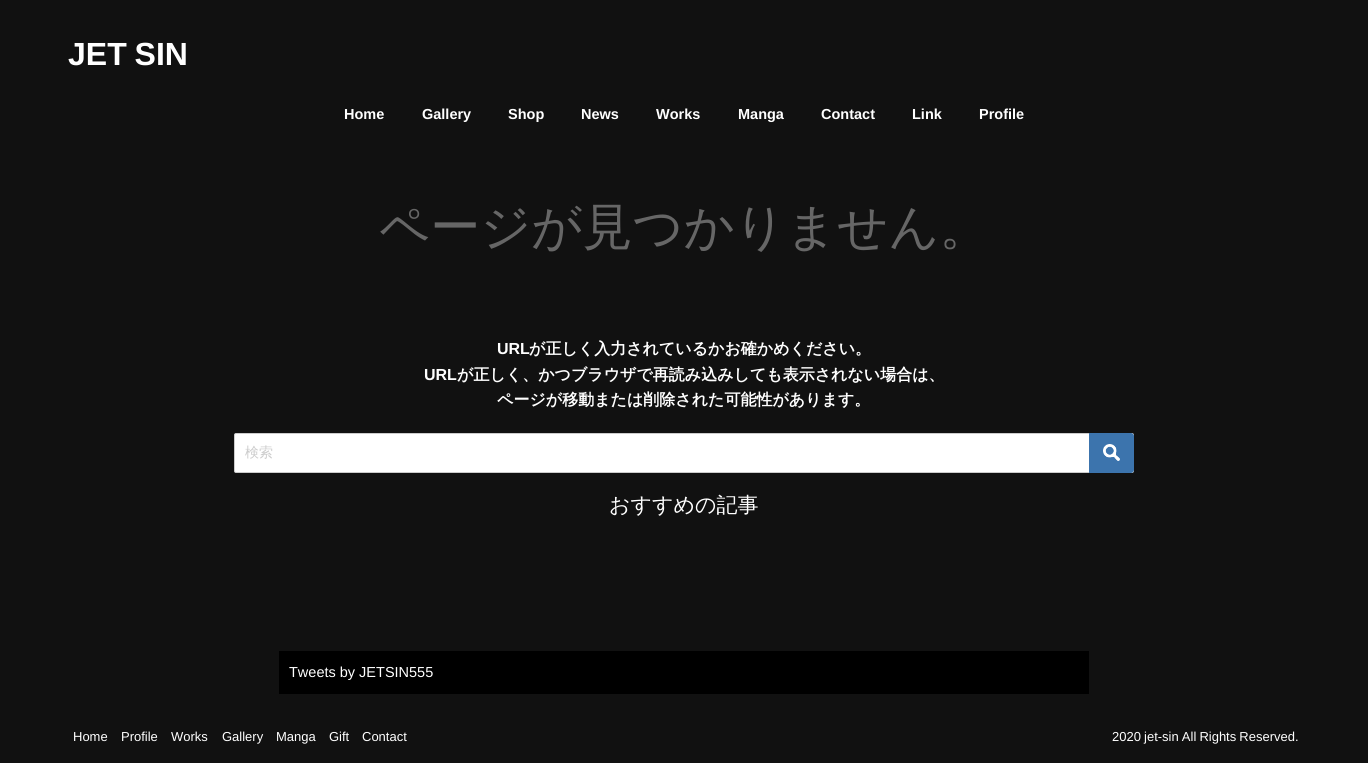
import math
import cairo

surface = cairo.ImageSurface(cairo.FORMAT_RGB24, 1368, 763)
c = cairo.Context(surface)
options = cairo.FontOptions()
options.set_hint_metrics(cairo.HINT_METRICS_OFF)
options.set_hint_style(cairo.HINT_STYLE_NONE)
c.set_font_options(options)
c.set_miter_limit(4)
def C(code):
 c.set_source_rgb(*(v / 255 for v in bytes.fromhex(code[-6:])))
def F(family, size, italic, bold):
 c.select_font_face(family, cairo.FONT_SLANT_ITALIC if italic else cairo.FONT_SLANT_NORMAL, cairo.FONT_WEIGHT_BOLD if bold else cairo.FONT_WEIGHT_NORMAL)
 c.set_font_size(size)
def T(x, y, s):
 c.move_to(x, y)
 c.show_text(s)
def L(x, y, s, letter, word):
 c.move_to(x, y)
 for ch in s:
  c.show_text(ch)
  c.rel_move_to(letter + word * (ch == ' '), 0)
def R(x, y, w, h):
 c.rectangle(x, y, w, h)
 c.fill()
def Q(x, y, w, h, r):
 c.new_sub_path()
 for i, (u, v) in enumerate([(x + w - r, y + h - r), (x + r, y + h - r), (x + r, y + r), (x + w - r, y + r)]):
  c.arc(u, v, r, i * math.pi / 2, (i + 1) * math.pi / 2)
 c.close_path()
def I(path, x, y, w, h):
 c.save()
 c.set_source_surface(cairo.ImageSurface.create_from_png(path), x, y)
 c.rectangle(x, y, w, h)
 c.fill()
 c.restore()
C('111111')
c.paint()
F('Liberation Sans',32,0,1)
C('ffffff')
L(68,65,'JET SIN',0,-1)
F('Liberation Sans',14.5,0,1)
T(344,119,'Home')
T(422,119,'Gallery')
T(508,119,'Shop')
T(581,119,'News')
T(656,119,'Works')
T(738,119,'Manga')
T(821,119,'Contact')
T(912,119,'Link')
T(979,119,'Profile')
F('WenQuanYi Zen Hei Medium',50,0,0)
C('666666')
T(379,244,'ページが見つかりません。')
F('Liberation Sans',16,0,1)
C('ffffff')
T(497,354,'URL')
F('WenQuanYi Zen Hei',16,0,1)
T(529,354,'が正しく入力されているかお確かめください。')
F('Liberation Sans',16,0,1)
T(424,380,'URL')
F('WenQuanYi Zen Hei',16,0,1)
T(457,380,'が正しく、かつブラウザで再読み込みしても表示されない場合は、')
T(497,405,'ページが移動または削除された可能性があります。')
Q(234.5,433.5,899,39,1.5)
c.fill_preserve()
C('cccccc')
c.set_line_width(1)
c.stroke()
F('WenQuanYi Zen Hei Medium',14,0,0)
T(245,457,'検索')
C('3c74ad')
c.new_path()
c.move_to(1089,433)
c.line_to(1131,433)
c.curve_to(1132.5,433,1134,434.5,1134,436)
c.line_to(1134,470)
c.curve_to(1134,471.5,1132.5,473,1131,473)
c.line_to(1089,473)
c.close_path()
c.fill()
I('1.png',1103,444,17,17)
F('WenQuanYi Zen Hei Medium',21,0,0)
C('ffffff')
T(609,512,'おすすめの記事')
C('000000')
R(279,651,810,43)
F('Liberation Sans',14.5,0,0)
C('ffffff')
T(289,677,'Tweets by JETSIN555')
F('Liberation Sans',13,0,0)
T(73,741,'Home')
T(121,741,'Profile')
T(171,741,'Works')
T(222,741,'Gallery')
T(276,741,'Manga')
T(329,741,'Gift')
T(362,741,'Contact')
L(1112,741,'2020 jet-sin All Rights Reserved.',0,-.5)
surface.write_to_png('o.png')
